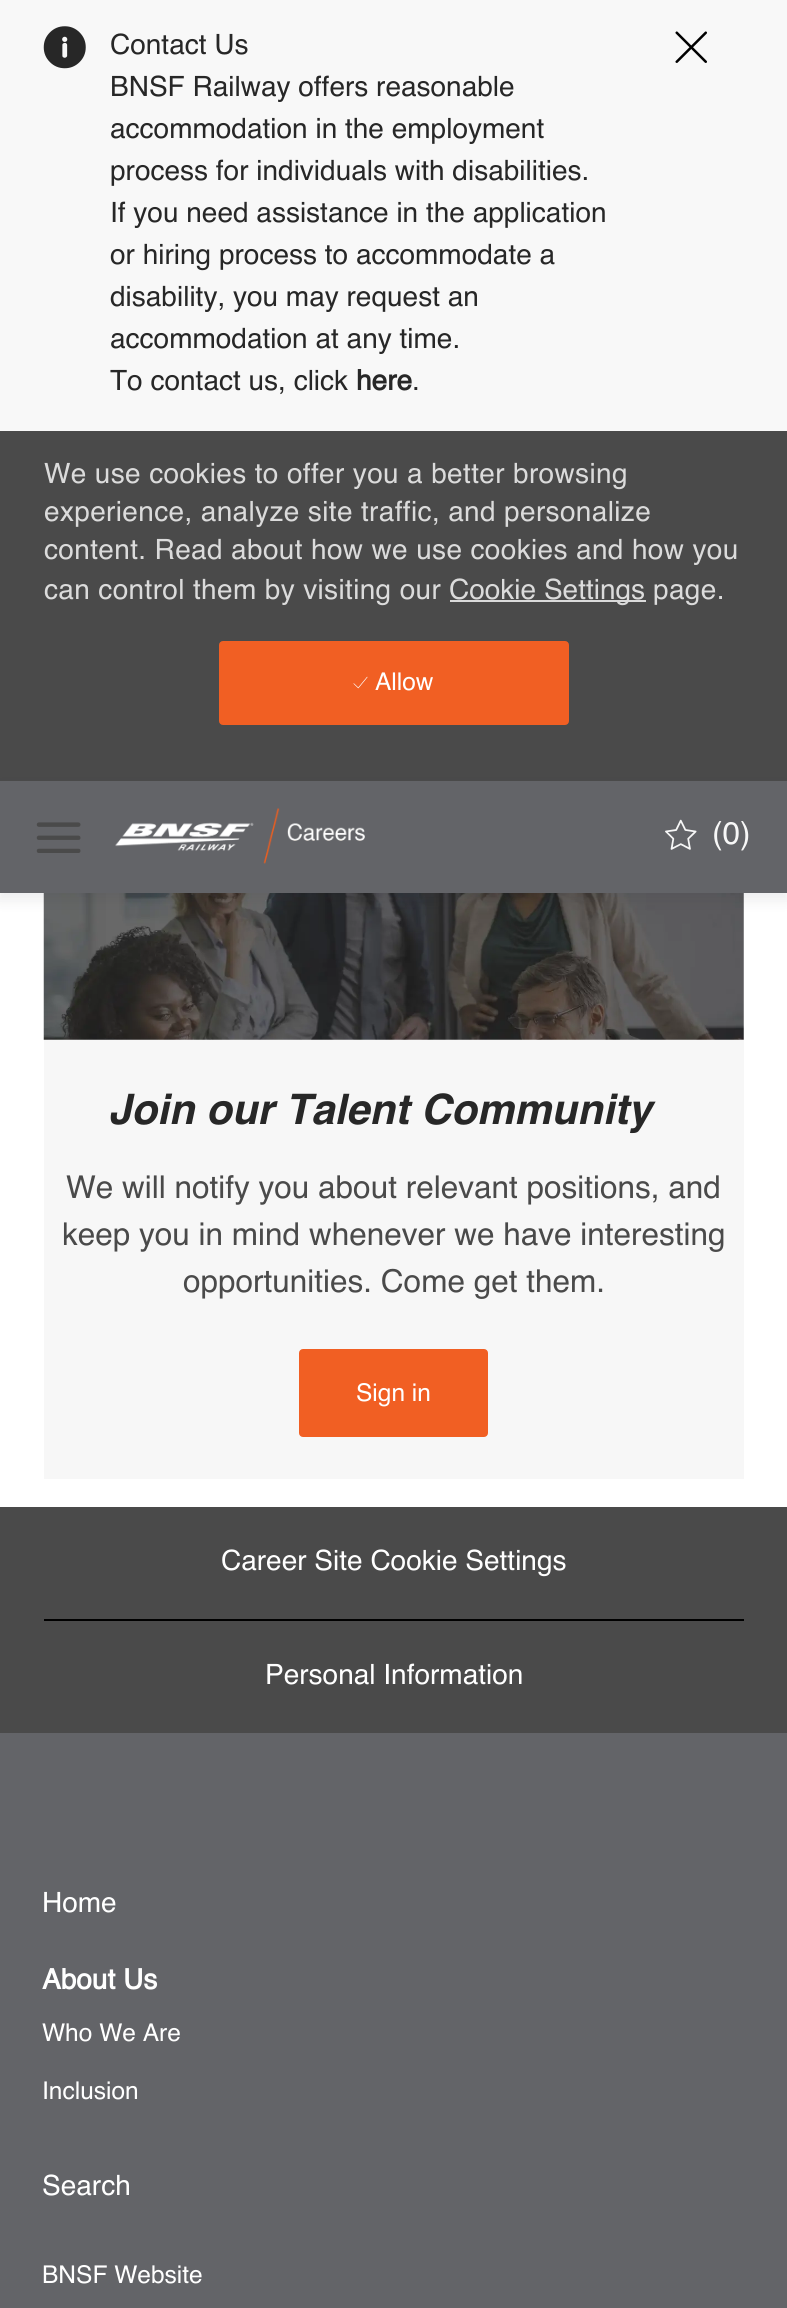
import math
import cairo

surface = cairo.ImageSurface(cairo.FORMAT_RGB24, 787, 2308)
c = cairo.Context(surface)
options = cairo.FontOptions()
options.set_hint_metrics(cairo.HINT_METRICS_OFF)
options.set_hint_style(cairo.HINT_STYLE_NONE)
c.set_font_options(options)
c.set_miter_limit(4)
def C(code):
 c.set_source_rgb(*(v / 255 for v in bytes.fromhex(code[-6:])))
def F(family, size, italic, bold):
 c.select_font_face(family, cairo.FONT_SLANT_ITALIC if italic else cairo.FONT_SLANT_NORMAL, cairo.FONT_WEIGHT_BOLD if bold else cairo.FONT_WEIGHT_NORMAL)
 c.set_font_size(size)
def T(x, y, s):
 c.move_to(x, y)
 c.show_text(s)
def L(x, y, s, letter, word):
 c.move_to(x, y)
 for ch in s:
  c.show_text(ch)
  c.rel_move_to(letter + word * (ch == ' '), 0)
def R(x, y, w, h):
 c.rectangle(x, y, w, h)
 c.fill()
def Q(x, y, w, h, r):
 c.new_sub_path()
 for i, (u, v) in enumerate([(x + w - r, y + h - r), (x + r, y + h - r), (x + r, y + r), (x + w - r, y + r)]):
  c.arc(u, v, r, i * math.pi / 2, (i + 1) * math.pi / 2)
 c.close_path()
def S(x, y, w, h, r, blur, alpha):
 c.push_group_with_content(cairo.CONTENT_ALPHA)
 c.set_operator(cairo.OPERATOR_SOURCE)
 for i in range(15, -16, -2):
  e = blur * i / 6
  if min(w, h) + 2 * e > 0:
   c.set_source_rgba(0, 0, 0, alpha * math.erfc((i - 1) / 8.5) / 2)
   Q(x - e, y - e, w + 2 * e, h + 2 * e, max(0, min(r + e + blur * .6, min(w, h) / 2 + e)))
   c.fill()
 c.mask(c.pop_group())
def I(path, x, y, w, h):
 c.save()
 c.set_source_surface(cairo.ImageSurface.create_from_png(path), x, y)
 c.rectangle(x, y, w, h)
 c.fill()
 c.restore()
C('ffffff')
c.paint()
C('f8f8f8')
R(0,0,787,431)
I('1.png',43,26,43,43)
F('Helvetica',28,0,0)
C('272727')
T(110,54,'Contact Us')
T(110,96,'BNSF Railway offers reasonable')
T(110,138,'accommodation in the employment')
T(110,180,'process for individuals with disabilities.')
T(110,222,'If you need assistance in the application')
T(110,264,'or hiring process to accommodate a')
T(110,306,'disability, you may request an')
T(110,348,'accommodation at any time.')
T(110,390,'To contact us, click')
F('Helvetica',28,0,1)
T(356,390,'here')
F('Helvetica',28,0,0)
T(412,390,'.')
I('2.png',675,31,32,32)
C('4a4a4a')
R(0,431,787,350)
C('dbdbdb')
L(44,483,'We use cookies to offer you a better browsing',.35,0)
L(44,521,'experience, analyze site traffic, and personalize',.35,0)
L(44,559,'content. Read about how we use cookies and how you',.35,0)
L(44,599,'can control them by visiting our',.35,0)
R(450,600,196,2)
T(449,599,'Cookie Settings')
L(653,599,'page.',.35,0)
C('f15f23')
Q(220,642,348,82,3)
c.fill_preserve()
c.stroke()
I('3.png',353,676,15,13)
F('Helvetica',24.5,0,0)
C('ffffff')
T(375,690,'Allow')
I('7.png',43,893,701,147)
C('22242b')
S(-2,786,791,115,0,7,.08)
C('636468')
R(0,781,787,112)
I('4.png',36,822,45,31)
I('5.png',115,808,250,56)
I('6.png',665,819,32,31)
F('Helvetica',31.5,0,0)
C('f7f7f7')
T(712,844,'(0)')
R(44,1040,700,439)
F('Helvetica',42,1,1)
C('272727')
T(108,1124,'Join our Talent Community')
F('Helvetica',31.5,0,0)
C('4a4a4a')
T(66,1198,'We will notify you about relevant positions, and')
T(62,1245,'keep you in mind whenever we have interesting')
T(183,1292,'opportunities. Come get them.')
C('f15f23')
Q(300,1350,187,86,3)
c.fill_preserve()
c.stroke()
F('Helvetica',24.5,0,0)
C('ffffff')
T(356,1401,'Sign in')
C('636468')
R(0,1733,787,575)
C('4a4a4a')
R(0,1507,787,226)
F('Helvetica',28,0,0)
C('ffffff')
T(221,1570,'Career Site Cookie Settings')
C('000000')
R(44,1619,700,2)
C('ffffff')
T(265,1684,'Personal Information')
T(42,1912,'Home')
F('Helvetica',28,0,1)
T(42,1989,'About Us')
F('Helvetica',24.5,0,0)
T(42,2041,'Who We Are')
T(42,2099,'Inclusion')
F('Helvetica',28,0,0)
T(42,2195,'Search')
F('Helvetica',24.5,0,0)
T(42,2283,'BNSF Website')
surface.write_to_png('o.png')
